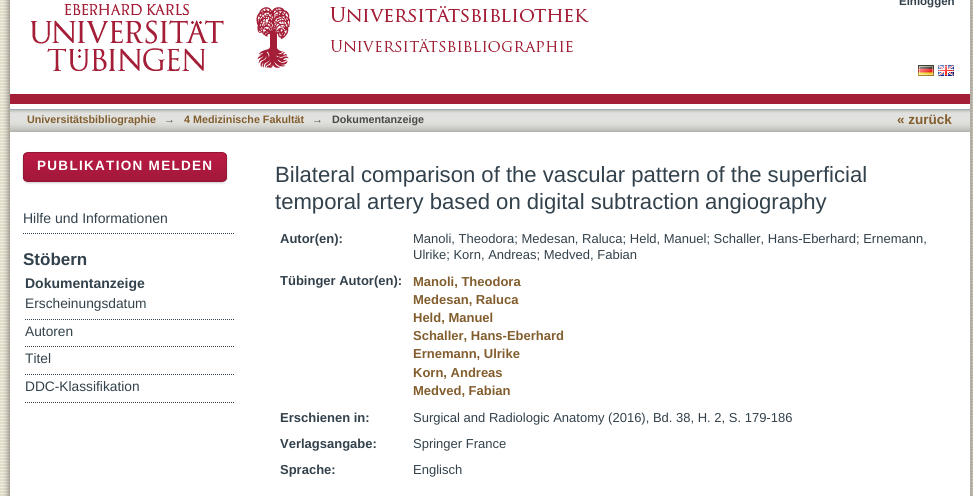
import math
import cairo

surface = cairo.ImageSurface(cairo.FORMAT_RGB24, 973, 496)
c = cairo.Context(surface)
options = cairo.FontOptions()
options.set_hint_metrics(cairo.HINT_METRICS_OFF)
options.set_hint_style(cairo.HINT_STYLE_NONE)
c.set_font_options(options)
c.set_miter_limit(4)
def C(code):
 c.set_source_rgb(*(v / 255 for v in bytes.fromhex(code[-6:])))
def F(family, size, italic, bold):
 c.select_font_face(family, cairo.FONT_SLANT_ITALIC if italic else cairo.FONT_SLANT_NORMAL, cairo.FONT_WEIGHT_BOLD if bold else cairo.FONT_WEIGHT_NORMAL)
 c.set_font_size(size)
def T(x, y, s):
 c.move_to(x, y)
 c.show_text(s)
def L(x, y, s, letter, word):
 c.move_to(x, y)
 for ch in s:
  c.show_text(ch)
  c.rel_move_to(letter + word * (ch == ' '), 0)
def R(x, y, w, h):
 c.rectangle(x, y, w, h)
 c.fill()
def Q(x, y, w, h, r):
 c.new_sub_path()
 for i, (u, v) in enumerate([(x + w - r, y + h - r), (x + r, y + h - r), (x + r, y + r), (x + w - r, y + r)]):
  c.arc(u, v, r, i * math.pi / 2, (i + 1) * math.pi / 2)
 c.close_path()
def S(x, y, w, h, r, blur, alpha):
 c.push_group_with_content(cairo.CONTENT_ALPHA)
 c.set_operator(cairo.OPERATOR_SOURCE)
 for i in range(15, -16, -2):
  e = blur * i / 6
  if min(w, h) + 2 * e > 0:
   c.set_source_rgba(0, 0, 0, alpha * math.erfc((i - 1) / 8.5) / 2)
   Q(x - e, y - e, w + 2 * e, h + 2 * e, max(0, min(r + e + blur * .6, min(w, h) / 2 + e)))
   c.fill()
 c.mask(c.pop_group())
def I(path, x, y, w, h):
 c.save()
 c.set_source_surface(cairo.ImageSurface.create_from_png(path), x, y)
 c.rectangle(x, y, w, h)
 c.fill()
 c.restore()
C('ffffff')
c.paint()
I('1.png',0,0,3,496)
I('2.png',3,0,970,496)
C('a51e37')
R(10,94,960,10)
I('3.png',31,4,259,67)
I('4.png',330,6,259,46)
F('Liberation Sans',11.5,0,1)
C('32414b')
T(899,5,'Einloggen')
I('5.png',10,110,960,22)
C('9cacba')
R(10,109,960,1)
I('6.png',918,65,16,11)
I('7.png',938,65,16,11)
F('Liberation Sans',10.75,0,1)
C('825d2d')
T(27,123,'Universitätsbibliographie')
C('484848')
T(164,123,'→')
C('825d2d')
T(184,123,'4 Medizinische Fakultät')
C('484848')
T(312,123,'→')
T(332,123,'Dokumentanzeige')
F('Liberation Sans',13.5,0,1)
C('825d2d')
T(897,124,'« zurück')
C('000000')
S(23,153,204,30,5,1,.2)
c.save()
Q(23,152,204,30,5)
c.clip()
gradient = cairo.LinearGradient(125,153,125,181)
gradient.add_color_stop_rgba(0,0.733,0.102,0.263,1)
gradient.add_color_stop_rgba(1,0.635,0.094,0.231,1)
c.set_source(gradient)
R(23,153,204,28)
c.restore()
Q(23.5,152.5,203,29,4.5)
C('901735')
c.set_line_width(1)
c.stroke()
C('ffffff')
L(37,170,'PUBLIKATION MELDEN',1.3,0)
c.new_path()
c.move_to(23,233.5)
c.line_to(235,233.5)
C('32414b')
c.set_dash([1,1])
c.stroke()
F('Liberation Sans',14,0,0)
T(23,223,'Hilfe und Informationen')
F('Liberation Sans',17,0,1)
T(23,265,'Stöbern')
F('Liberation Sans',14,0,1)
T(25,288,'Dokumentanzeige')
c.new_path()
c.move_to(25,319.5)
c.line_to(235,319.5)
c.stroke()
F('Liberation Sans',13.75,0,0)
T(25,308,'Erscheinungsdatum')
c.new_path()
c.move_to(25,346.5)
c.line_to(235,346.5)
c.stroke()
T(25,336,'Autoren')
c.new_path()
c.move_to(25,374.5)
c.line_to(235,374.5)
c.stroke()
T(25,363,'Titel')
c.new_path()
c.move_to(25,402.5)
c.line_to(235,402.5)
c.stroke()
T(25,391,'DDC-Klassifikation')
F('Liberation Sans',22.1,0,0)
T(275,182,'Bilateral comparison of the vascular pattern of the superficial')
T(275,209,'temporal artery based on digital subtraction angiography')
F('Liberation Sans',13,0,1)
T(280,243,'Autor(en):')
F('Liberation Sans',13,0,0)
T(413,243,'Manoli, Theodora; Medesan, Raluca; Held, Manuel; Schaller, Hans-Eberhard; Ernemann,')
T(413,259,'Ulrike; Korn, Andreas; Medved, Fabian')
F('Liberation Sans',13,0,1)
T(280,285,'Tübinger Autor(en):')
C('825d2d')
T(413,286,'Manoli, Theodora')
T(413,304,'Medesan, Raluca')
T(413,322,'Held, Manuel')
T(413,340,'Schaller, Hans-Eberhard')
T(413,358,'Ernemann, Ulrike')
T(413,377,'Korn, Andreas')
T(413,395,'Medved, Fabian')
C('32414b')
T(280,422,'Erschienen in:')
F('Liberation Sans',13,0,0)
T(413,422,'Surgical and Radiologic Anatomy (2016), Bd. 38, H. 2, S. 179-186')
F('Liberation Sans',13,0,1)
T(280,448,'Verlagsangabe:')
F('Liberation Sans',13,0,0)
T(413,448,'Springer France')
F('Liberation Sans',13,0,1)
T(280,474,'Sprache:')
F('Liberation Sans',13,0,0)
T(413,474,'Englisch')
surface.write_to_png('o.png')
